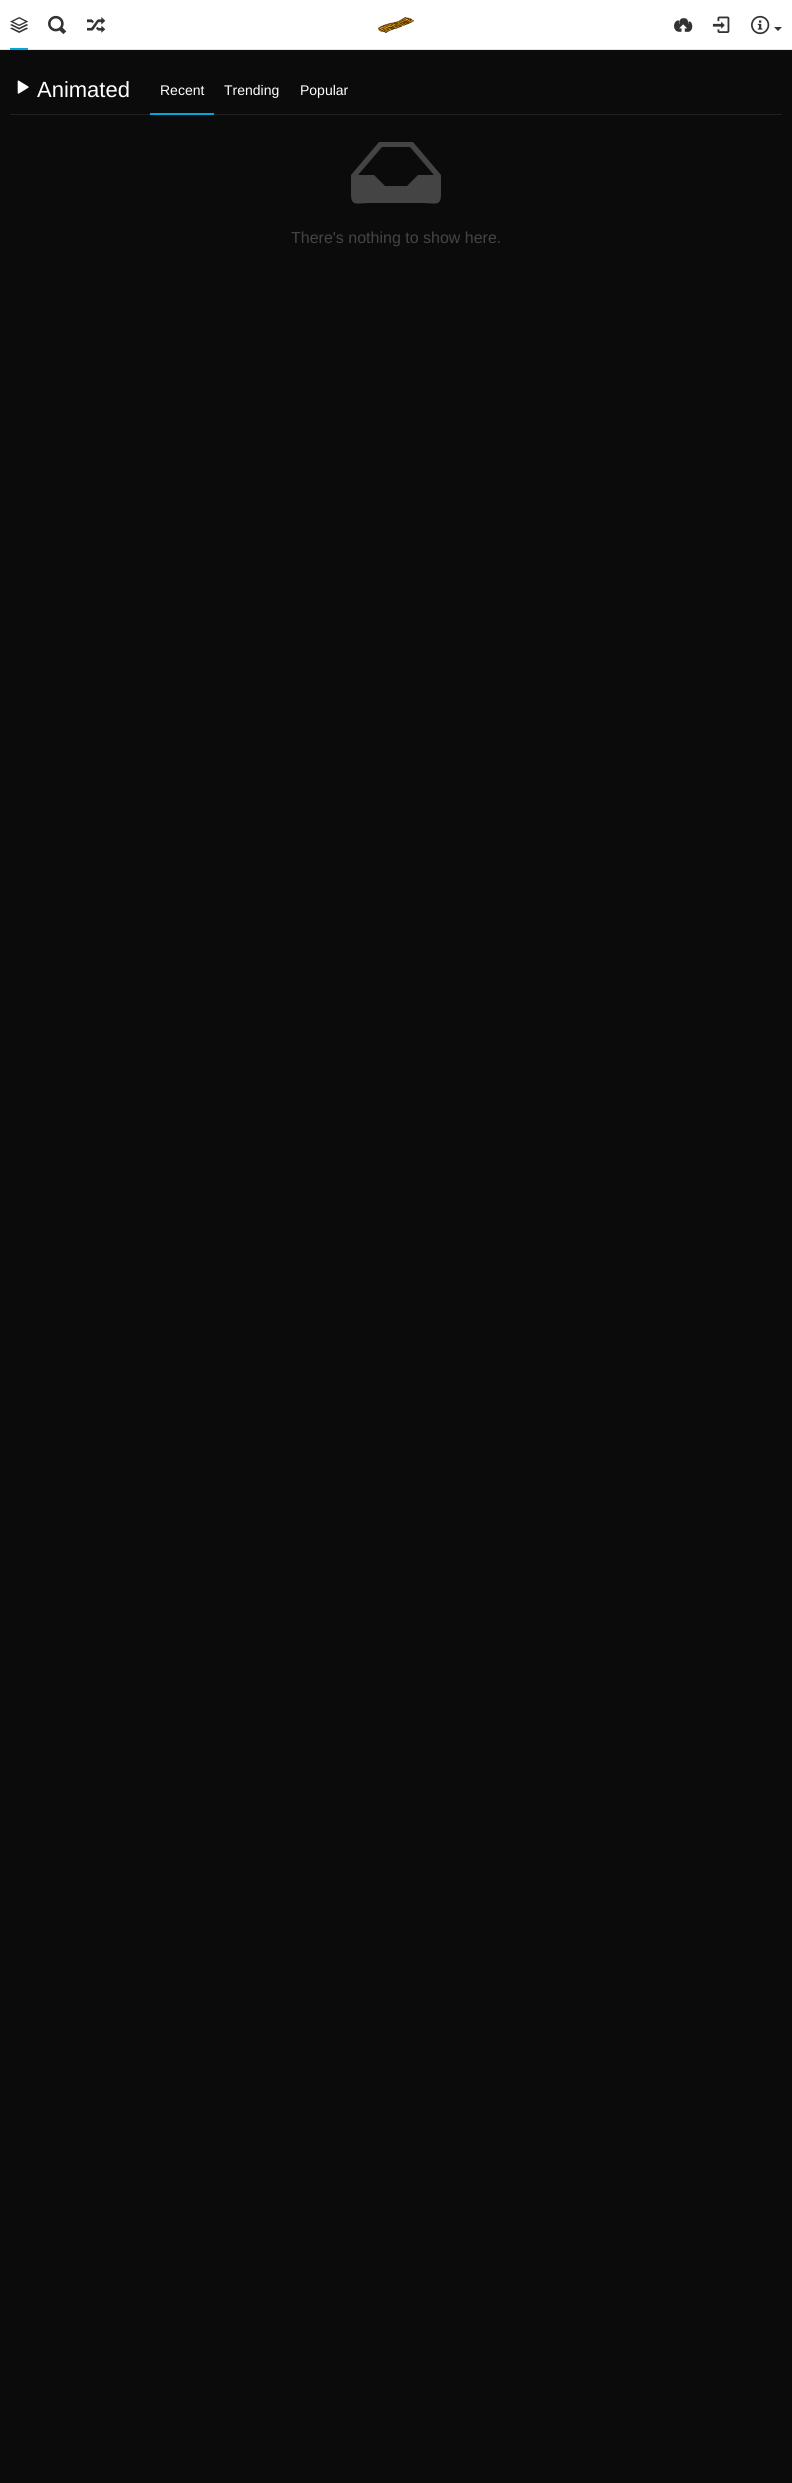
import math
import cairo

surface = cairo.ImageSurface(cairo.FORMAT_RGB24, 792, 2483)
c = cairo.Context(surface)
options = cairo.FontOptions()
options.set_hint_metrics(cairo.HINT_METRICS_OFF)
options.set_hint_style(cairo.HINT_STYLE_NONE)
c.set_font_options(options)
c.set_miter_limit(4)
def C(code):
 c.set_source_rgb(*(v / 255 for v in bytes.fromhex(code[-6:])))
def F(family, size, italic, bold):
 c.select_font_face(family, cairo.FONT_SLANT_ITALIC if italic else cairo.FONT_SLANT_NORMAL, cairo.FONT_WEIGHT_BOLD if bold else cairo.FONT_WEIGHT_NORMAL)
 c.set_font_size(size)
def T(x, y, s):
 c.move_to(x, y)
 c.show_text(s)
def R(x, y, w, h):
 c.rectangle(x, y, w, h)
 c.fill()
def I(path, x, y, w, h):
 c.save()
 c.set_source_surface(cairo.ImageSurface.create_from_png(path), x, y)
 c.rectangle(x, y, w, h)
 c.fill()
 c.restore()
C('0b0b0b')
c.paint()
C('ffffff')
R(0,0,792,49)
C('e6e6e6')
R(0,49,792,1)
C('00a7da')
R(10,48,18,2)
I('1.png',10,17,19,16)
I('2.png',48,15,19,20)
I('3.png',87,17,19,16)
I('4.png',378,17,36,16)
I('5.png',674,18,19,14)
I('6.png',712,16,18,17)
I('7.png',751,15,19,20)
C('333333')
c.new_path()
c.move_to(774,27)
c.line_to(782,27)
c.line_to(778,31)
c.close_path()
c.fill()
C('212121')
R(10,114,772,1)
I('8.png',17,80,12,14)
F('Liberation Sans',22,0,0)
C('ffffff')
T(37,97,'Animated')
C('00a7da')
R(150,113,64,2)
F('Liberation Sans',14,0,0)
C('ffffff')
T(160,95,'Recent')
T(224,95,'Trending')
T(300,95,'Popular')
C('444444')
c.new_path()
c.move_to(413,142)
c.line_to(379,142)
c.line_to(351,175)
c.line_to(351,194)
c.curve_to(351,207,357,203,370,203)
c.line_to(422,203)
c.curve_to(435,203,441,207,441,194)
c.line_to(441,175)
c.close_path()
c.move_to(418,175)
c.line_to(407,186)
c.line_to(385,186)
c.line_to(374,175)
c.line_to(358,175)
c.line_to(382,147)
c.line_to(410,147)
c.line_to(434,175)
c.close_path()
c.fill()
F('Liberation Sans',16,0,0)
T(291,243,'There\'s nothing to show here.')
surface.write_to_png('o.png')
